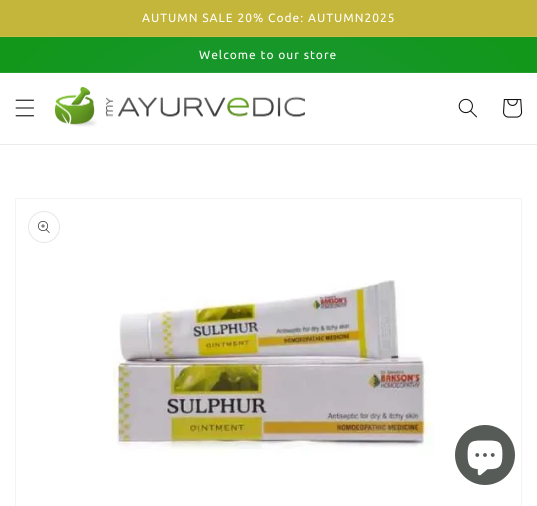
import math
import cairo

surface = cairo.ImageSurface(cairo.FORMAT_RGB24, 537, 506)
c = cairo.Context(surface)
options = cairo.FontOptions()
options.set_hint_metrics(cairo.HINT_METRICS_OFF)
options.set_hint_style(cairo.HINT_STYLE_NONE)
c.set_font_options(options)
c.set_miter_limit(4)
def C(code):
 c.set_source_rgb(*(v / 255 for v in bytes.fromhex(code[-6:])))
def F(family, size, italic, bold):
 c.select_font_face(family, cairo.FONT_SLANT_ITALIC if italic else cairo.FONT_SLANT_NORMAL, cairo.FONT_WEIGHT_BOLD if bold else cairo.FONT_WEIGHT_NORMAL)
 c.set_font_size(size)
def L(x, y, s, letter, word):
 c.move_to(x, y)
 for ch in s:
  c.show_text(ch)
  c.rel_move_to(letter + word * (ch == ' '), 0)
def R(x, y, w, h):
 c.rectangle(x, y, w, h)
 c.fill()
def I(path, x, y, w, h):
 c.save()
 c.set_source_surface(cairo.ImageSurface.create_from_png(path), x, y)
 c.rectangle(x, y, w, h)
 c.fill()
 c.restore()
C('ffffff')
c.paint()
C('c4b63b')
R(0,0,537,36)
C('c9bc4b')
R(0,36,537,1)
F('Ubuntu',12,0,0)
C('ffffff')
L(142,22,'AUTUMN SALE 20% Code: AUTUMN2025',1,0)
gradient = cairo.RadialGradient(0,0,0,0,0,1)
gradient.set_matrix(cairo.Matrix(1 / 380, 0, 0, 1 / 358, -1 * 269 / 380, -1 * 253 / 358))
gradient.add_color_stop_rgba(.13,0.114,0.588,0.247,1)
gradient.add_color_stop_rgba(.86,0.071,0.592,0.102,1)
c.set_source(gradient)
R(0,37,537,35)
gradient = cairo.RadialGradient(0,0,0,0,0,1)
gradient.set_matrix(cairo.Matrix(1 / 380, 0, 0, 1 / 358, -1 * 269 / 380, -1 * 253 / 358))
gradient.add_color_stop_rgba(.13,0.184,0.62,0.306,1)
gradient.add_color_stop_rgba(.86,0.145,0.624,0.173,1)
c.set_source(gradient)
R(0,72,537,1)
C('ffffff')
L(199,59,'Welcome to our store',1,0)
C('ececec')
R(0,144,537,1)
I('1.png',15,99,20,18)
I('2.png',55,87,250,40)
I('3.png',458,98,19,20)
I('4.png',503,99,20,19)
c.rectangle(15.5,198.5,506,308)
C('f3f3f3')
c.set_line_width(1)
c.stroke()
I('5.png',111,280,323,175)
c.arc(44,227,15.5,0,2 * math.pi)
C('e7e7e7')
c.stroke()
I('6.png',38,221,12,12)
C('575b57')
c.arc(485,455,30,0,2 * math.pi)
c.fill()
I('7.png',467,440,36,36)
surface.write_to_png('o.png')
